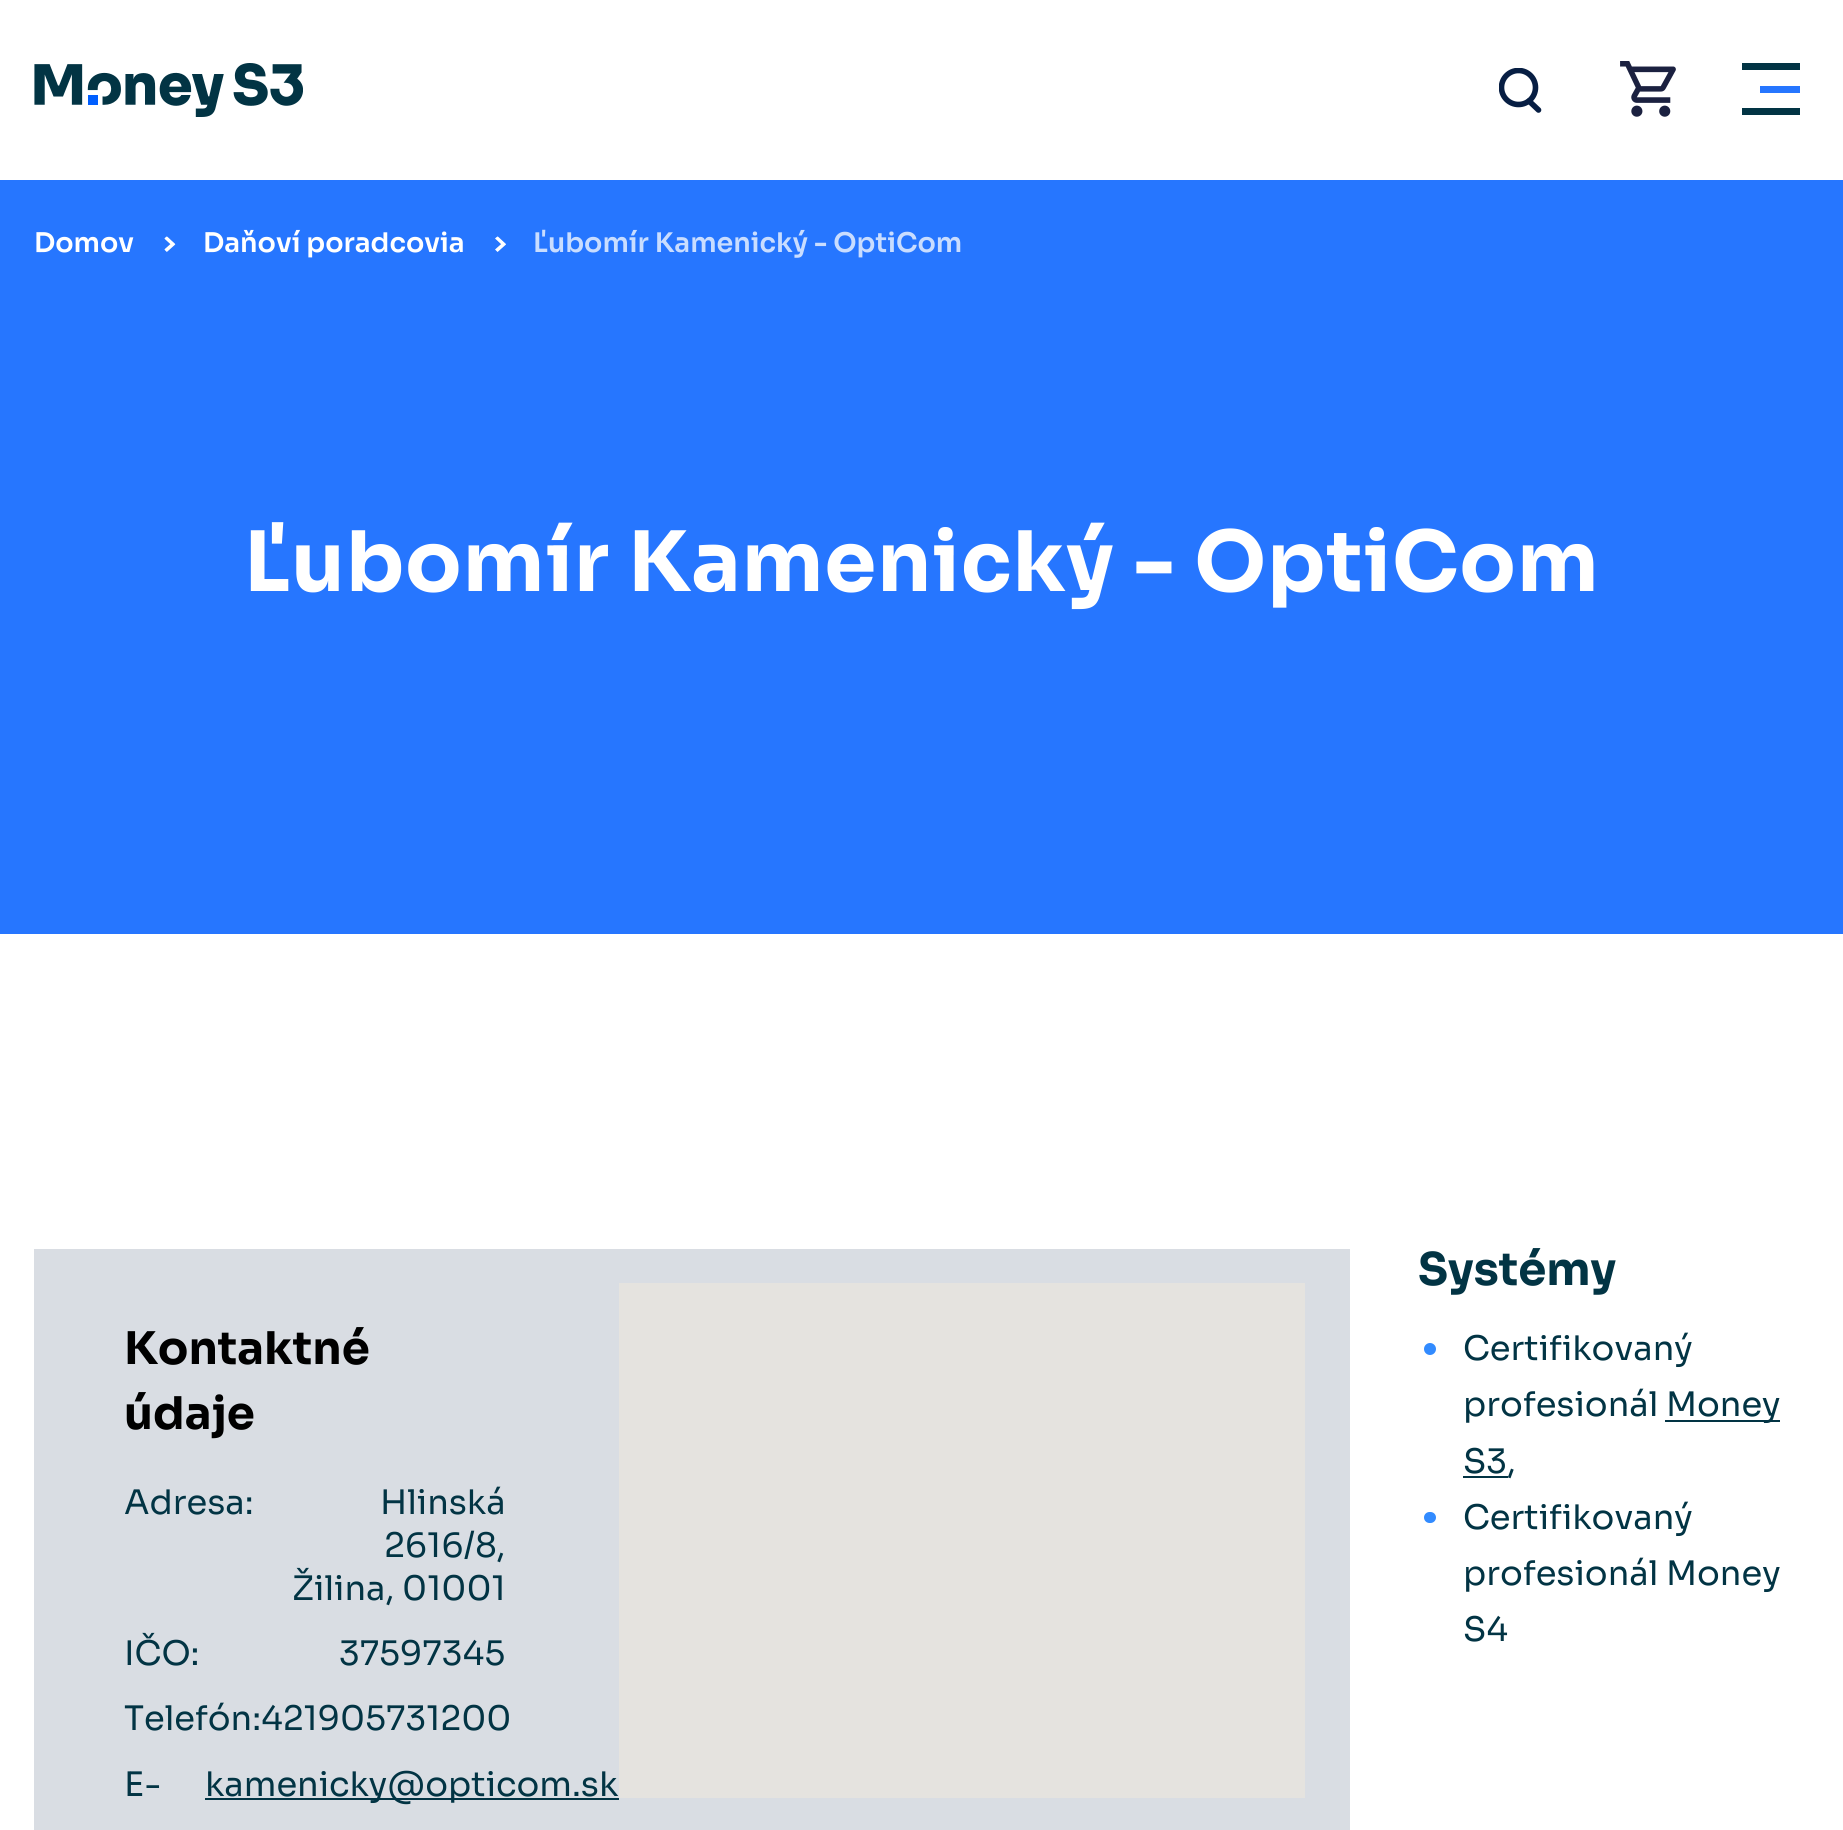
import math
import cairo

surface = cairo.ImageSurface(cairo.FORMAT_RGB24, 1843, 1830)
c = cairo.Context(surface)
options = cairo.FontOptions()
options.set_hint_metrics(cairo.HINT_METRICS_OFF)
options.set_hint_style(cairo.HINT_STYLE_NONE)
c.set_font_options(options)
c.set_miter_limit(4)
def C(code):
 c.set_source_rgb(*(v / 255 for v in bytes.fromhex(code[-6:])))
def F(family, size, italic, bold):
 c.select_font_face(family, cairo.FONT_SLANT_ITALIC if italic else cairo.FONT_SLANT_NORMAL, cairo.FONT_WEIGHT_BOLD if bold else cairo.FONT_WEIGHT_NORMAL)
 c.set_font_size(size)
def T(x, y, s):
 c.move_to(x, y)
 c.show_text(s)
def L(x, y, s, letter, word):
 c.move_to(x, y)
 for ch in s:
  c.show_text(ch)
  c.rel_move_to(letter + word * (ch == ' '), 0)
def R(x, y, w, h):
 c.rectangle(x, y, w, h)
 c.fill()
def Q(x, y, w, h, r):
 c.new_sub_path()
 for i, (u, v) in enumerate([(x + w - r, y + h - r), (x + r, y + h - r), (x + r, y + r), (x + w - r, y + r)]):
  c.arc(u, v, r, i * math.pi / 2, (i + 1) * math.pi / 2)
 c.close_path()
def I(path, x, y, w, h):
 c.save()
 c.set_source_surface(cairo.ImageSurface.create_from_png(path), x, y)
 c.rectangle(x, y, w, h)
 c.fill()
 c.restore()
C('ffffff')
c.paint()
I('1.png',34,63,269,54)
c.new_path()
c.move_to(1529,101)
c.line_to(1538.5,110)
C('071e43')
c.set_line_width(5.6)
c.set_line_cap(cairo.LINE_CAP_ROUND)
c.stroke()
c.save()
c.rectangle(1499,68,45,47)
c.clip()
c.arc(1518.5,87.5,17,0,2 * math.pi)
c.set_line_cap(cairo.LINE_CAP_BUTT)
c.stroke()
c.restore()
I('2.png',1620,61,56,56)
C('023444')
R(1742,63,58,7)
C('2676ff')
R(1760,86,40,7)
C('023444')
R(1742,108,58,7)
C('2676ff')
R(0,180,1843,754)
F('Sora SemiBold',27,0,0)
C('ffffff')
T(34,252,'Domov')
I('3.png',164,236,12,16)
T(203,252,'Daňoví poradcovia')
I('4.png',495,236,11,16)
C('c9ddff')
T(533,252,'Ľubomír Kamenický - OptiCom')
F('Sora',83.25,0,1)
C('ffffff')
L(244,591,'Ľubomír Kamenický - OptiCom',.8,0)
C('d9dde3')
R(34,1249,1316,581)
F('Sora',45,0,1)
C('000000')
T(124,1364,'Kontaktné')
T(124,1429,'údaje')
F('Sora',33.75,0,0)
C('023444')
T(124,1514,'Adresa:')
T(380,1514,'Hlinská')
T(384,1557,'2616/8,')
T(292,1600,'Žilina, 01001')
T(124,1665,'IČO:')
T(339,1665,'37597345')
T(124,1730,'Telefón:421905731200')
T(124,1796,'E-')
R(205,1798,414,2)
T(205,1796,'kamenicky@opticom.sk')
C('e5e3df')
R(619,1283,686,515)
F('Sora',45,0,1)
C('023444')
T(1418,1285,'Systémy')
C('328bff')
c.new_path()
c.arc(1430,1349,6,0,2 * math.pi)
c.fill()
F('Sora',33.75,0,0)
C('023444')
T(1463,1360,'Certifikovaný')
T(1463,1416,'profesionál')
R(1665,1420,115,2)
T(1666,1416,'Money')
R(1463,1476,45,2)
T(1463,1473,'S3,')
C('328bff')
Q(1424,1512,12,11,5.5)
c.fill()
C('023444')
T(1463,1529,'Certifikovaný')
T(1463,1585,'profesionál Money')
T(1463,1641,'S4')
surface.write_to_png('o.png')
